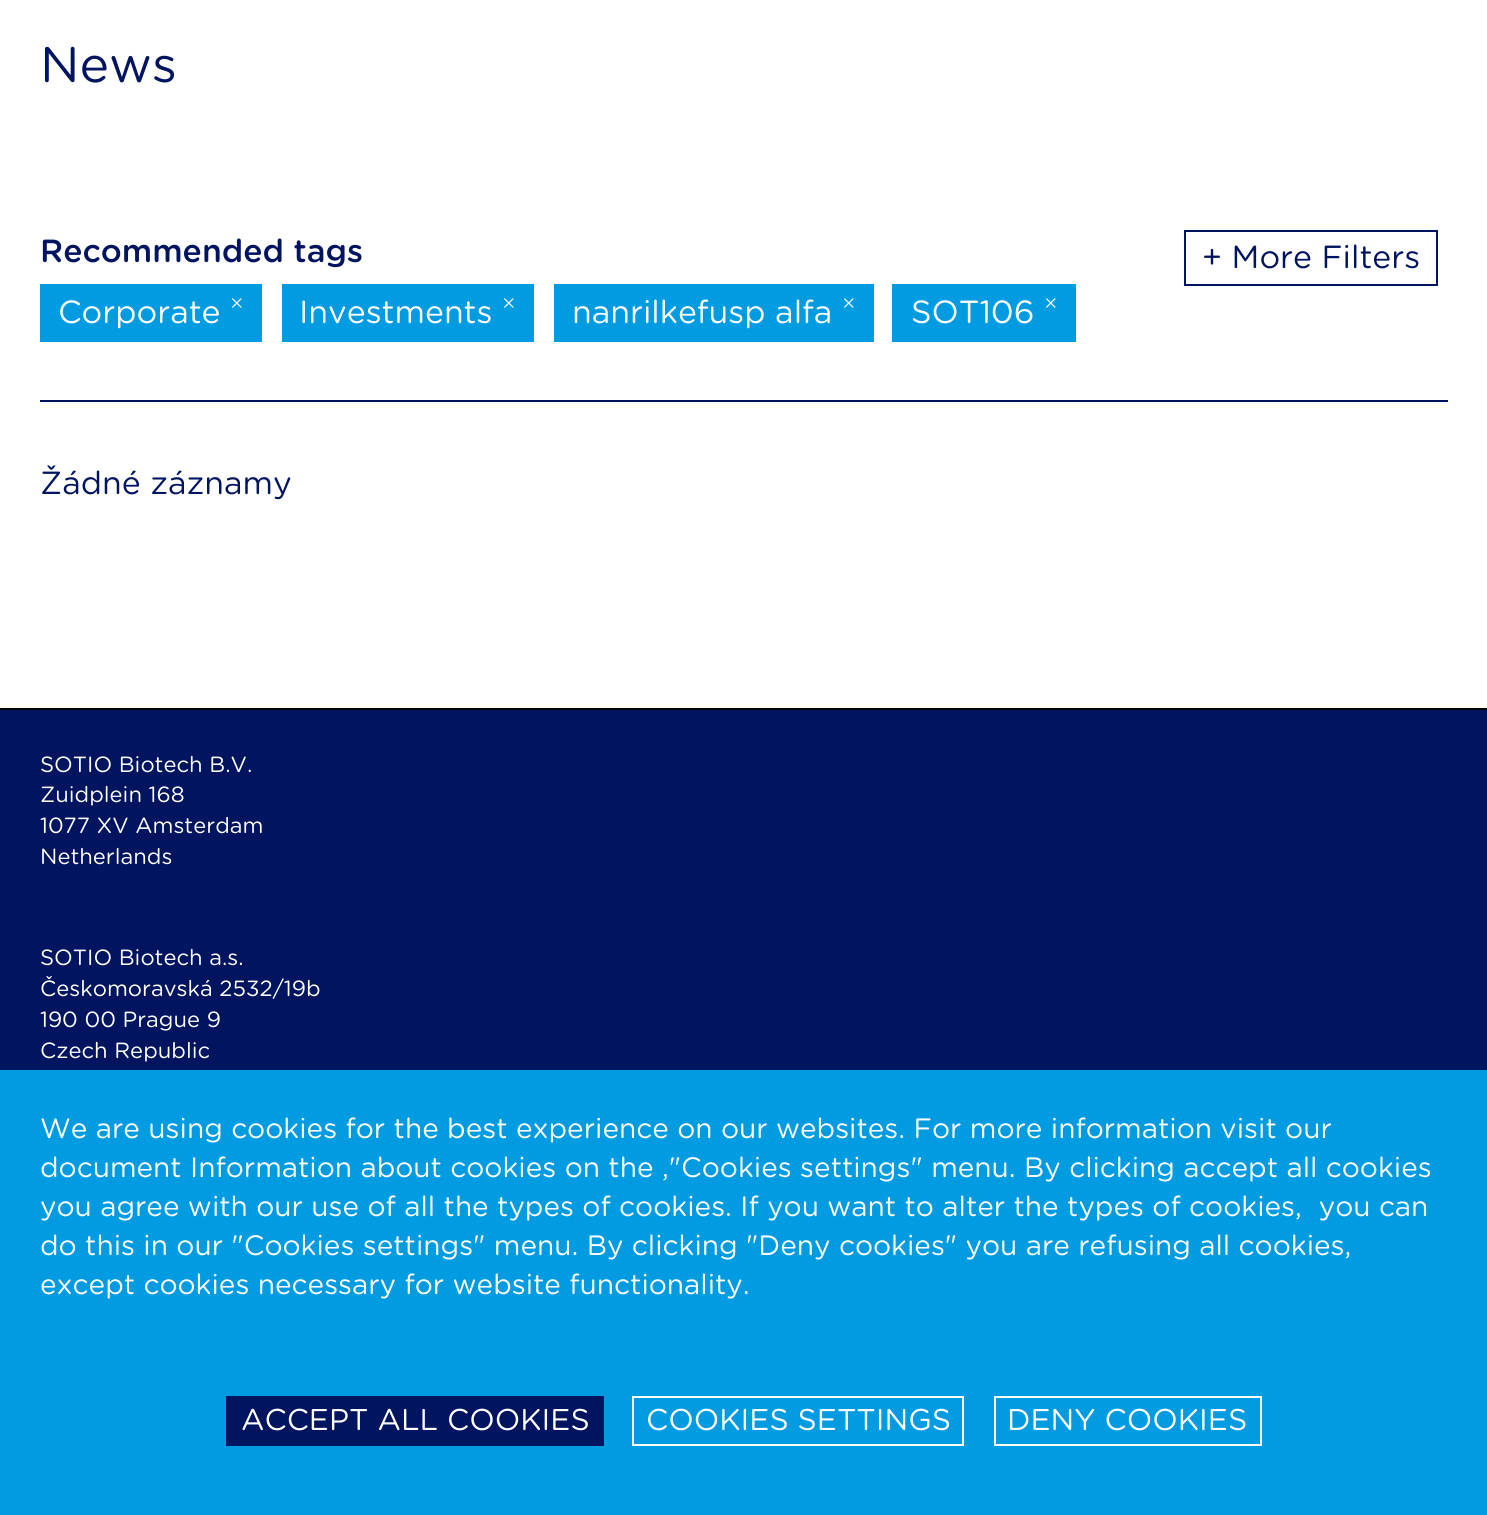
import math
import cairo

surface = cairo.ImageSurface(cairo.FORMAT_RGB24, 1487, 1515)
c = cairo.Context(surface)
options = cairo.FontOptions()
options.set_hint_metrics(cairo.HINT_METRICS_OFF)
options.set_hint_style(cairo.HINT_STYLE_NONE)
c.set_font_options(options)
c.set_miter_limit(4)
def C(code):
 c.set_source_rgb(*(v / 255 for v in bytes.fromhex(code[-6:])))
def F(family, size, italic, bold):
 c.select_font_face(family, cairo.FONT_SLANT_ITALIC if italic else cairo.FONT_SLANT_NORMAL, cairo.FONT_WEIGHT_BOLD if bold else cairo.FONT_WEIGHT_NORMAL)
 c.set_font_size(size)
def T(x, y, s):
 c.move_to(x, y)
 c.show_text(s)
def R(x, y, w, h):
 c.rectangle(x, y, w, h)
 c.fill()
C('ffffff')
c.paint()
F('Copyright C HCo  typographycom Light',50,0,0)
C('00145f')
T(40,82,'News')
R(40,400,1408,2)
F('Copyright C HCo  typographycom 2 Light',32,0,0)
T(40,262,'Recommended tags')
C('009be0')
R(40,284,222,58)
F('Copyright C HCo  typographycom Light',32,0,0)
C('ffffff')
T(58,323,'Corporate')
F('Liberation Serif',24,0,0)
T(230,311,'×')
C('009be0')
R(282,284,252,58)
F('Copyright C HCo  typographycom Light',32,0,0)
C('ffffff')
T(299,323,'Investments')
F('Liberation Serif',24,0,0)
T(502,311,'×')
C('009be0')
R(554,284,320,58)
F('Copyright C HCo  typographycom Light',32,0,0)
C('ffffff')
T(572,323,'nanrilkefusp alfa')
F('Liberation Serif',24,0,0)
T(842,311,'×')
C('009be0')
R(892,284,184,58)
F('Copyright C HCo  typographycom Light',32,0,0)
C('ffffff')
T(911,323,'SOT106')
F('Liberation Serif',24,0,0)
T(1044,311,'×')
c.rectangle(1185,231,252,54)
C('00145f')
c.stroke()
F('Copyright C HCo  typographycom Light',32,0,0)
T(1202,268,'+ More Filters')
T(40,494,'Žádné záznamy')
R(0,710,1487,360)
C('000000')
R(0,708,1487,2)
F('Copyright C HCo  typographycom Light',22,0,0)
C('ffffff')
T(40,772,'SOTIO Biotech B.V.')
T(40,802,'Zuidplein 168')
T(40,833,'1077 XV Amsterdam')
T(40,864,'Netherlands')
T(40,965,'SOTIO Biotech a.s.')
T(40,996,'Českomoravská 2532/19b')
T(40,1027,'190 00 Prague 9')
T(40,1058,'Czech Republic')
C('009be0')
R(0,1070,1487,445)
F('Copyright C HCo  typographycom Light',28,0,0)
C('ffffff')
T(40,1138,'We are using cookies for the best experience on our websites. For more information visit our')
T(40,1177,'document Information about cookies on the ,"Cookies settings" menu. By clicking accept all cookies')
T(40,1216,'you agree with our use of all the types of cookies. If you want to alter the types of cookies,  you can')
T(40,1255,'do this in our "Cookies settings" menu. By clicking "Deny cookies" you are refusing all cookies,')
T(40,1294,'except cookies necessary for website functionality.')
C('00145f')
R(226,1396,378,50)
F('Copyright C HCo  typographycom Light',30,0,0)
C('ffffff')
T(241,1430,'ACCEPT ALL COOKIES')
c.rectangle(633,1397,330,48)
c.stroke()
T(646,1430,'COOKIES SETTINGS')
c.rectangle(995,1397,266,48)
c.stroke()
T(1007,1430,'DENY COOKIES')
surface.write_to_png('o.png')
